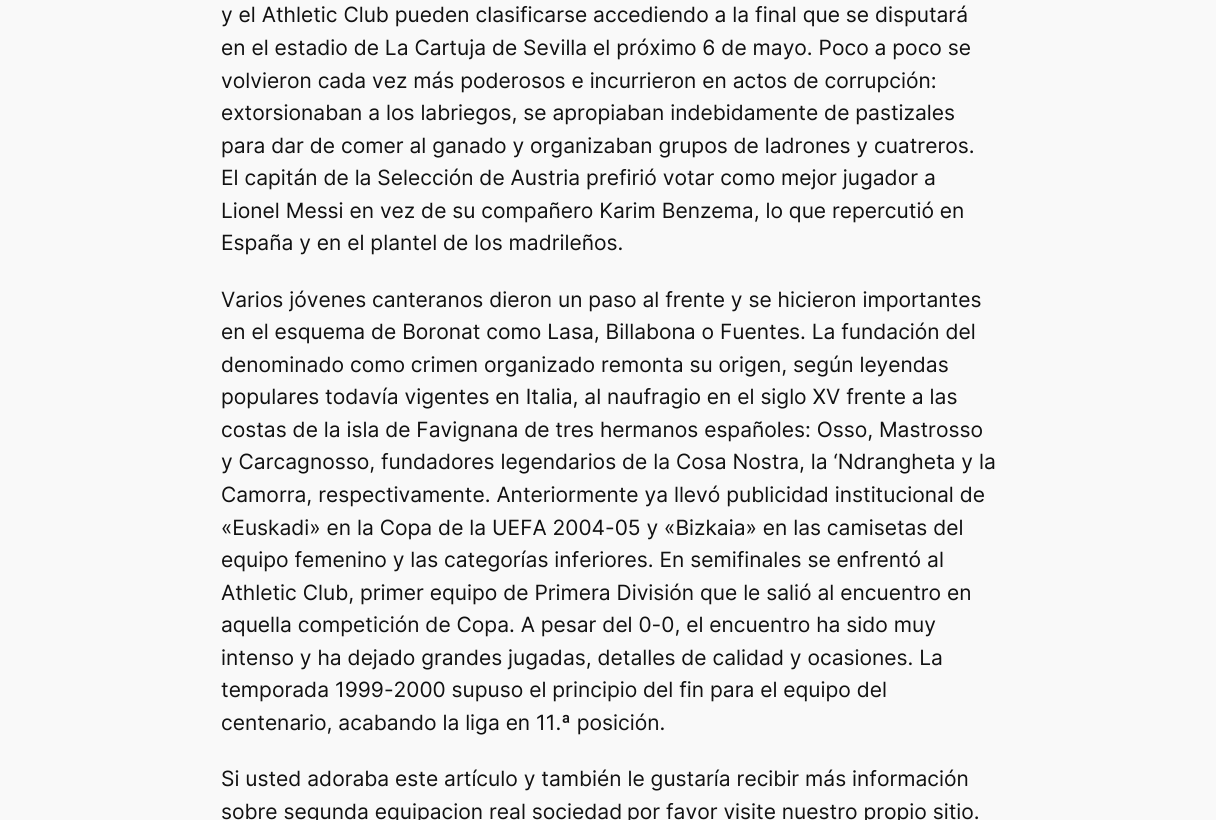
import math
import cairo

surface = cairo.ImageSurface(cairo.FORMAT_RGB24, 1216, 820)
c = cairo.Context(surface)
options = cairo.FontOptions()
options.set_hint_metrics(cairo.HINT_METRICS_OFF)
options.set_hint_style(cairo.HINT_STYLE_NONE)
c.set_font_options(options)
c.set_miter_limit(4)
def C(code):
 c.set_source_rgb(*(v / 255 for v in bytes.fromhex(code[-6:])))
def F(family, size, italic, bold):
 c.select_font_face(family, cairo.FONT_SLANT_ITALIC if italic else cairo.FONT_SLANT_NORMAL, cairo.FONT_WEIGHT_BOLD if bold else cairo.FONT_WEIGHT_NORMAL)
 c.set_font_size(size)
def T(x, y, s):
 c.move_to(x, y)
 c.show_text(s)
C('f9f9f9')
c.paint()
F('Inter',21,0,0)
C('111111')
T(221,22,'y el Athletic Club pueden clasificarse accediendo a la final que se disputará')
T(221,55,'en el estadio de La Cartuja de Sevilla el próximo 6 de mayo. Poco a poco se')
T(221,88,'volvieron cada vez más poderosos e incurrieron en actos de corrupción:')
T(221,120,'extorsionaban a los labriegos, se apropiaban indebidamente de pastizales')
T(221,153,'para dar de comer al ganado y organizaban grupos de ladrones y cuatreros.')
T(221,185,'El capitán de la Selección de Austria prefirió votar como mejor jugador a')
T(221,218,'Lionel Messi en vez de su compañero Karim Benzema, lo que repercutió en')
T(221,250,'España y en el plantel de los madrileños.')
T(221,307,'Varios jóvenes canteranos dieron un paso al frente y se hicieron importantes')
T(221,339,'en el esquema de Boronat como Lasa, Billabona o Fuentes. La fundación del')
T(221,372,'denominado como crimen organizado remonta su origen, según leyendas')
T(221,404,'populares todavía vigentes en Italia, al naufragio en el siglo XV frente a las')
T(221,437,'costas de la isla de Favignana de tres hermanos españoles: Osso, Mastrosso')
T(221,469,'y Carcagnosso, fundadores legendarios de la Cosa Nostra, la ‘Ndrangheta y la')
T(221,502,'Camorra, respectivamente. Anteriormente ya llevó publicidad institucional de')
T(221,535,'«Euskadi» en la Copa de la UEFA 2004-05 y «Bizkaia» en las camisetas del')
T(221,567,'equipo femenino y las categorías inferiores. En semifinales se enfrentó al')
T(221,600,'Athletic Club, primer equipo de Primera División que le salió al encuentro en')
T(221,632,'aquella competición de Copa. A pesar del 0-0, el encuentro ha sido muy')
T(221,665,'intenso y ha dejado grandes jugadas, detalles de calidad y ocasiones. La')
T(221,697,'temporada 1999-2000 supuso el principio del fin para el equipo del')
T(221,730,'centenario, acabando la liga en 11.ª posición.')
T(221,786,'Si usted adoraba este artículo y también le gustaría recibir más información')
T(221,819,'sobre segunda equipacion real sociedad')
T(627,819,'por favor visite nuestro propio sitio.')
surface.write_to_png('o.png')
